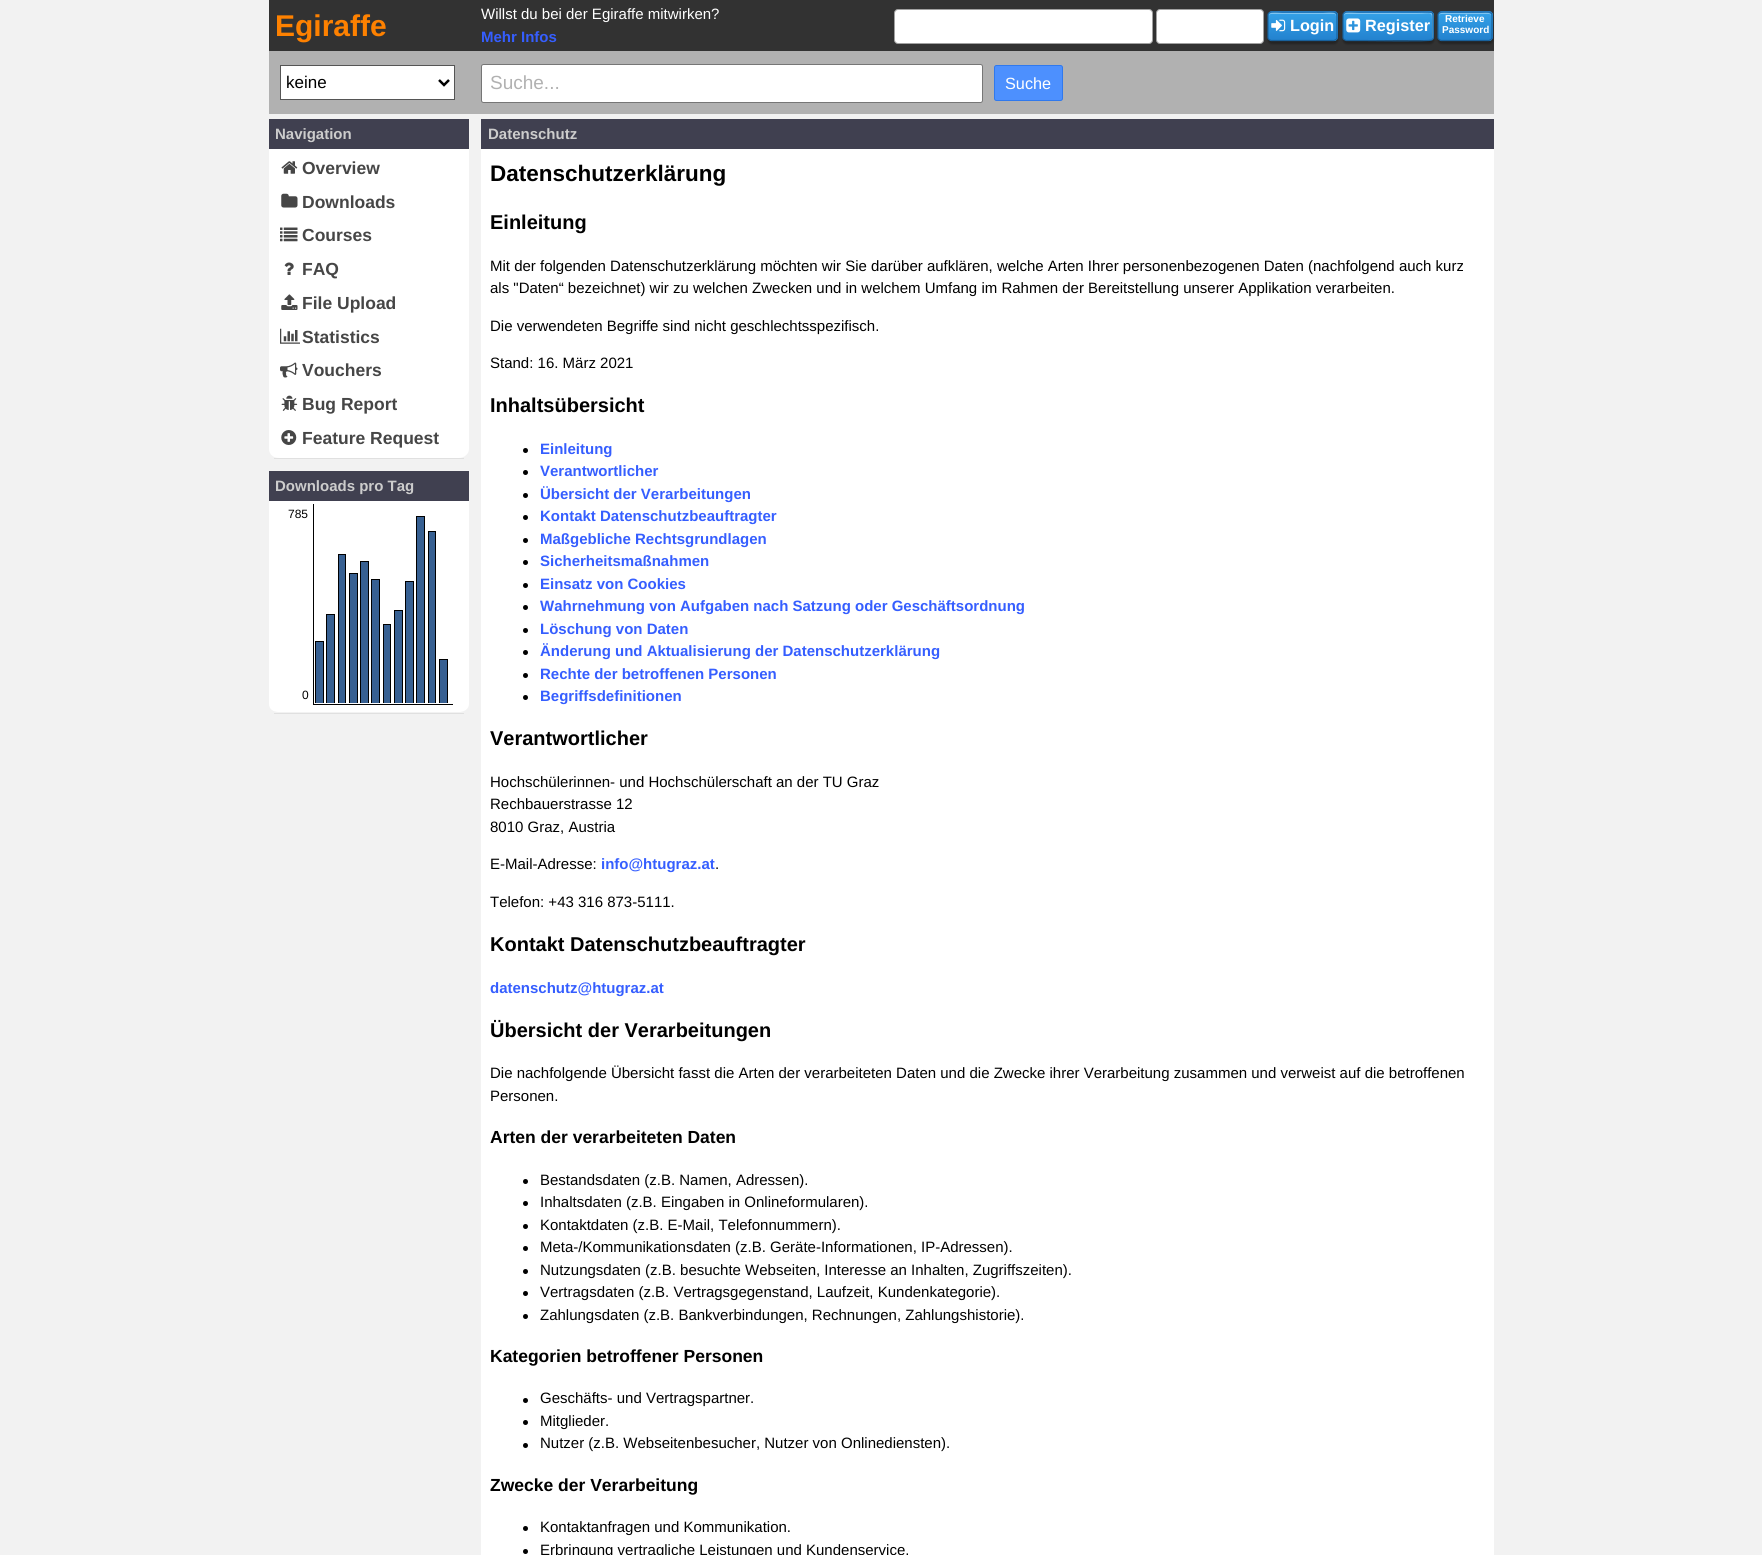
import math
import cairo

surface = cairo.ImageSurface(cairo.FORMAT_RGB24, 1762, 1555)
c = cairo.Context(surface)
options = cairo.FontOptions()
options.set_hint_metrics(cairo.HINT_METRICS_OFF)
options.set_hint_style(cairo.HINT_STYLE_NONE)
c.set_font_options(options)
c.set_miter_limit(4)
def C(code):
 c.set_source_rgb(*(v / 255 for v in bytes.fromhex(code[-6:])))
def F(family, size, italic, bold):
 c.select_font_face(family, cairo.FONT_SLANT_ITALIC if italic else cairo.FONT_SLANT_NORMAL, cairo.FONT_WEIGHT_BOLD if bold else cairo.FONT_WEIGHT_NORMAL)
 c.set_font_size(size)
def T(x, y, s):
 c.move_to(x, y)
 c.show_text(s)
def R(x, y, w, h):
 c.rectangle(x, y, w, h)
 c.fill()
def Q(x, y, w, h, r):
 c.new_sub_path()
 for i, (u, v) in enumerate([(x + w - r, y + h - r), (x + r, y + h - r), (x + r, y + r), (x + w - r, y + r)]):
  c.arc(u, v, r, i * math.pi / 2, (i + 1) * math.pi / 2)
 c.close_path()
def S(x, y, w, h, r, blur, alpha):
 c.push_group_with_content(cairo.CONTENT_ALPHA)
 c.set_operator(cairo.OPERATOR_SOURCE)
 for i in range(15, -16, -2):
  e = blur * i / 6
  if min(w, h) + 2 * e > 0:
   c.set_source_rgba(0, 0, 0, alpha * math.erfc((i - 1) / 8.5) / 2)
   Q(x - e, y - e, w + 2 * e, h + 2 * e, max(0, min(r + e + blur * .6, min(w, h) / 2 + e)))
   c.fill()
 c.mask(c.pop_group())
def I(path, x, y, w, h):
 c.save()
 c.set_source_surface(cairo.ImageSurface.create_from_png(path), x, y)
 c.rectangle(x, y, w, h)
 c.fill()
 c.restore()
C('f2f2f2')
c.paint()
C('323232')
R(269,0,1225,51)
F('Liberation Sans',30,0,1)
C('fe8100')
T(275,36,'Egiraffe')
F('Liberation Sans',15,0,0)
C('ffffff')
T(481,19,'Willst du bei der Egiraffe mitwirken?')
F('Liberation Sans',15,0,1)
C('355eff')
T(481,42,'Mehr Infos')
C('ffffff')
Q(894.5,9.5,258,34,3.5)
c.fill_preserve()
C('a1a1a1')
c.set_line_width(1)
c.stroke()
C('ffffff')
Q(1156.5,9.5,107,34,3.5)
c.fill_preserve()
C('a1a1a1')
c.stroke()
C('000000')
S(1268,14,70,30,4,1,.3)
c.save()
Q(1268,11,70,30,4)
c.clip()
gradient = cairo.LinearGradient(1269,-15,1269,13)
gradient.add_color_stop_rgba(0,0.204,0.631,0.906,1)
gradient.add_color_stop_rgba(1,0.137,0.51,0.812,1)
c.set_source(gradient)
R(1268,11,70,2)
gradient = cairo.LinearGradient(1269,13,1269,40)
gradient.add_color_stop_rgba(0,0.204,0.631,0.906,1)
gradient.add_color_stop_rgba(1,0.137,0.51,0.812,1)
c.set_source(gradient)
R(1268,13,70,27)
gradient = cairo.LinearGradient(1269,40,1269,68)
gradient.add_color_stop_rgba(0,0.204,0.631,0.906,1)
gradient.add_color_stop_rgba(1,0.137,0.51,0.812,1)
c.set_source(gradient)
R(1268,40,70,1)
c.restore()
C('80c5f0')
c.new_path()
c.move_to(1271,14)
c.line_to(1335,14)
c.line_to(1336,16)
c.curve_to(1336,10,1325,13,1323,13)
c.line_to(1282,13)
c.curve_to(1280,13,1269,10,1269,16)
c.curve_to(1269,15,1270,14,1271,14)
c.close_path()
c.fill()
c.new_path()
c.move_to(1269,13)
c.line_to(1271,12)
c.line_to(1334,12)
c.line_to(1336,13)
C('236fac')
c.set_line_width(1.2)
c.stroke()
c.new_path()
c.move_to(1336,13)
c.curve_to(1336.5,13.5,1337,14,1337,15)
c.line_to(1337,37.5)
c.curve_to(1337,38.5,1336.5,39,1336,39.5)
C('19629d')
c.stroke()
c.new_path()
c.move_to(1336,39.5)
c.line_to(1334,40.5)
c.line_to(1271,40.5)
c.line_to(1269,39.5)
C('18619c')
c.stroke()
c.new_path()
c.move_to(1269,39.5)
c.curve_to(1268.5,39,1268,38.5,1268,37.5)
c.line_to(1268,15)
c.curve_to(1268,14,1268.5,13.5,1269,13)
C('19629d')
c.stroke()
I('1.png',1271,19,15,13)
F('Liberation Sans',16.25,0,1)
C('ffffff')
T(1290,31,'Login')
C('000000')
S(1343,14,91,30,4,1,.3)
c.save()
Q(1343,11,91,30,4)
c.clip()
gradient = cairo.LinearGradient(1344,-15,1344,13)
gradient.add_color_stop_rgba(0,0.204,0.631,0.906,1)
gradient.add_color_stop_rgba(1,0.137,0.51,0.812,1)
c.set_source(gradient)
R(1343,11,91,2)
gradient = cairo.LinearGradient(1344,13,1344,40)
gradient.add_color_stop_rgba(0,0.204,0.631,0.906,1)
gradient.add_color_stop_rgba(1,0.137,0.51,0.812,1)
c.set_source(gradient)
R(1343,13,91,27)
c.restore()
C('80c5f0')
c.new_path()
c.move_to(1346,14)
c.line_to(1416,14)
c.curve_to(1433,14,1432,10,1432,24)
c.line_to(1432,40)
c.curve_to(1434,38,1433,29,1433,26)
c.curve_to(1433,10,1436,13,1416,13)
c.line_to(1360,13)
c.curve_to(1354,13,1344,10,1344,16)
c.curve_to(1344,15,1345,14,1346,14)
c.close_path()
c.fill()
c.new_path()
c.move_to(1344,13)
c.line_to(1346,12)
c.line_to(1360,12)
c.curve_to(1368,12,1430,11,1432,12.5)
c.line_to(1432,13)
C('236fac')
c.stroke()
c.new_path()
c.move_to(1432,13)
c.curve_to(1433,13.5,1433,14,1433,15)
c.line_to(1433,37.5)
c.curve_to(1433,38.5,1433,39,1432,39.5)
C('19629d')
c.stroke()
c.new_path()
c.move_to(1432,39.5)
c.line_to(1432,40)
c.curve_to(1430,41.5,1368,40.5,1360,40.5)
c.line_to(1346,40.5)
c.line_to(1344,39.5)
C('18619c')
c.stroke()
c.new_path()
c.move_to(1344,39.5)
c.curve_to(1343.5,39,1343,38.5,1343,37.5)
c.line_to(1343,15)
c.curve_to(1343,14,1343.5,13.5,1344,13)
C('19629d')
c.stroke()
I('2.png',1346,18,15,15)
C('ffffff')
T(1365,31,'Register')
C('000000')
S(1438,14,55,30,4,1,.3)
c.save()
Q(1438,11,55,30,4)
c.clip()
gradient = cairo.LinearGradient(1439,-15,1439,13)
gradient.add_color_stop_rgba(0,0.204,0.631,0.906,1)
gradient.add_color_stop_rgba(1,0.137,0.51,0.812,1)
c.set_source(gradient)
R(1438,11,55,2)
gradient = cairo.LinearGradient(1439,13,1439,40)
gradient.add_color_stop_rgba(0,0.204,0.631,0.906,1)
gradient.add_color_stop_rgba(1,0.137,0.51,0.812,1)
c.set_source(gradient)
R(1438,13,55,27)
gradient = cairo.LinearGradient(1439,40,1439,68)
gradient.add_color_stop_rgba(0,0.204,0.631,0.906,1)
gradient.add_color_stop_rgba(1,0.137,0.51,0.812,1)
c.set_source(gradient)
R(1438,40,55,1)
c.restore()
C('80c5f0')
c.new_path()
c.move_to(1441,14)
c.line_to(1489,14)
c.curve_to(1490,14,1491,15,1491,16)
c.curve_to(1491,11,1483,13,1481,13)
c.line_to(1449,13)
c.curve_to(1447,13,1439,11,1439,16)
c.curve_to(1439,15,1440,14,1441,14)
c.close_path()
c.fill()
c.new_path()
c.move_to(1439,13)
c.line_to(1441,12)
c.line_to(1489,12)
c.line_to(1491,13)
C('236fac')
c.stroke()
c.new_path()
c.move_to(1491,13)
c.curve_to(1491.5,13.5,1492,14,1492,15)
c.line_to(1492,37.5)
c.curve_to(1492,38.5,1491.5,39,1491,39.5)
C('19629d')
c.stroke()
c.new_path()
c.move_to(1491,39.5)
c.line_to(1489,40.5)
c.line_to(1441,40.5)
c.line_to(1439,39.5)
C('18619c')
c.stroke()
c.new_path()
c.move_to(1439,39.5)
c.curve_to(1438.5,39,1438,38.5,1438,37.5)
c.line_to(1438,15)
c.curve_to(1438,14,1438.5,13.5,1439,13)
C('19629d')
c.stroke()
F('Liberation Sans',10,0,1)
C('ffffff')
T(1445,22,'Retrieve')
T(1442,33,'Password')
C('b1b1b1')
R(269,51,1225,63)
C('ffffff')
c.rectangle(280.5,65.5,174,34)
c.fill_preserve()
C('555555')
c.set_line_width(1)
c.stroke()
c.new_path()
c.move_to(439,80)
c.line_to(444,85)
c.line_to(449,80)
C('000000')
c.set_line_width(2.5)
c.stroke()
F('Liberation Sans',17,0,0)
T(286,88,'keine')
C('ffffff')
Q(481.5,64.5,501,38,2)
c.fill_preserve()
C('767676')
c.set_line_width(1)
c.stroke()
F('Liberation Sans',19,0,0)
C('b1b1b1')
T(490,89,'Suche...')
C('4d90fe')
Q(994.5,65.5,68,35,2)
c.fill_preserve()
C('3079ed')
c.stroke()
F('Liberation Sans',16.25,0,0)
C('ffffff')
T(1005,89,'Suche')
c.new_path()
c.move_to(269,119)
c.line_to(469,119)
c.line_to(469,449)
c.curve_to(469,454,464,458,459,458)
c.line_to(279,458)
c.curve_to(273,458,269,454,269,449)
c.close_path()
c.fill()
C('e0e0e0')
R(274,458,190,1)
C('404050')
R(269,119,200,30)
F('Liberation Sans',15,0,1)
C('cccccc')
T(275,139,'Navigation')
I('3.png',281,161,17,13)
F('Liberation Sans',17.5,0,1)
C('464646')
T(302,174,'Overview')
I('4.png',281,193,17,15)
T(302,208,'Downloads')
I('5.png',280,227,18,15)
T(302,241,'Courses')
I('6.png',284,262,10,13)
T(302,275,'FAQ')
I('7.png',281,294,17,16)
T(302,309,'File Upload')
I('8.png',280,328,20,16)
T(302,343,'Statistics')
I('9.png',280,362,18,16)
T(302,376,'Vouchers')
I('10.png',281,395,17,16)
T(302,410,'Bug Report')
I('11.png',281,430,16,15)
T(302,444,'Feature Request')
C('ffffff')
c.new_path()
c.move_to(269,471)
c.line_to(469,471)
c.line_to(469,704)
c.curve_to(469,709,464,712,459,712)
c.line_to(279,712)
c.curve_to(273,712,269,709,269,704)
c.close_path()
c.fill()
C('e0e0e0')
R(274,713,190,1)
C('404050')
R(269,471,200,30)
F('Liberation Sans',15,0,1)
C('cccccc')
T(275,491,'Downloads pro Tag')
F('Liberation Sans',12,0,0)
C('000000')
T(288,518,'785')
T(302,699,'0')
R(313,704,140,1)
R(313,504,1,201)
C('376092')
R(316,642,7,61)
c.save()
c.rectangle(315,504,136,199)
c.clip()
c.rectangle(315.5,641.5,8,64)
C('000000')
c.stroke()
c.restore()
R(327,615,7,88)
c.save()
c.rectangle(315,504,136,199)
c.clip()
c.rectangle(326.5,614.5,8,91)
C('000000')
c.stroke()
c.restore()
R(339,554,6,149)
c.save()
c.rectangle(315,504,136,199)
c.clip()
c.rectangle(338.5,554.5,7,151)
C('000000')
c.stroke()
c.restore()
R(350,574,7,129)
c.save()
c.rectangle(315,504,136,199)
c.clip()
c.rectangle(349.5,573.5,8,132)
C('000000')
c.stroke()
c.restore()
R(361,562,7,141)
c.save()
c.rectangle(315,504,136,199)
c.clip()
c.rectangle(360.5,561.5,8,144)
C('000000')
c.stroke()
c.restore()
R(372,580,7,123)
c.save()
c.rectangle(315,504,136,199)
c.clip()
c.rectangle(371.5,579.5,8,126)
C('000000')
c.stroke()
c.restore()
R(384,624,6,79)
c.save()
c.rectangle(315,504,136,199)
c.clip()
c.rectangle(383.5,624.5,7,81)
C('000000')
c.stroke()
c.restore()
R(395,611,7,92)
c.save()
c.rectangle(315,504,136,199)
c.clip()
c.rectangle(394.5,610.5,8,95)
C('000000')
c.stroke()
c.restore()
R(406,582,7,121)
c.save()
c.rectangle(315,504,136,199)
c.clip()
c.rectangle(405.5,581.5,8,124)
C('000000')
c.stroke()
c.restore()
R(417,517,7,186)
c.save()
c.rectangle(315,504,136,199)
c.clip()
c.rectangle(416.5,516.5,8,189)
C('000000')
c.stroke()
c.restore()
R(429,531,6,172)
c.save()
c.rectangle(315,504,136,199)
c.clip()
c.rectangle(428.5,531.5,7,174)
C('000000')
c.stroke()
c.restore()
R(440,660,7,43)
c.save()
c.rectangle(315,504,136,199)
c.clip()
c.rectangle(439.5,659.5,8,46)
C('000000')
c.stroke()
c.restore()
C('ffffff')
c.new_path()
c.move_to(481,119)
c.line_to(1494,119)
c.line_to(1494,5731)
c.curve_to(1494,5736,1489,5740,1484,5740)
c.line_to(491,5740)
c.curve_to(486,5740,481,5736,481,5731)
c.close_path()
c.fill()
C('404050')
R(481,119,1013,30)
F('Liberation Sans',15,0,1)
C('cccccc')
T(488,139,'Datenschutz')
F('Liberation Sans',22.5,0,1)
C('000000')
T(490,181,'Datenschutzerklärung')
F('Liberation Sans',20,0,1)
T(490,229,'Einleitung')
F('Liberation Sans',15,0,0)
T(490,271,'Mit der folgenden Datenschutzerklärung möchten wir Sie darüber aufklären, welche Arten Ihrer personenbezogenen Daten (nachfolgend auch kurz')
T(490,293,'als "Daten“ bezeichnet) wir zu welchen Zwecken und in welchem Umfang im Rahmen der Bereitstellung unserer Applikation verarbeiten.')
T(490,331,'Die verwendeten Begriffe sind nicht geschlechtsspezifisch.')
T(490,368,'Stand: 16. März 2021')
F('Liberation Sans',20,0,1)
T(490,412,'Inhaltsübersicht')
c.new_path()
c.arc(525.5,450.5,2.5,0,2 * math.pi)
c.fill()
F('Liberation Sans',15,0,1)
C('355eff')
T(540,454,'Einleitung')
C('000000')
c.new_path()
c.arc(525.5,472.5,2.5,0,2 * math.pi)
c.fill()
C('355eff')
T(540,476,'Verantwortlicher')
C('000000')
c.new_path()
c.arc(525.5,495.5,2.5,0,2 * math.pi)
c.fill()
C('355eff')
T(540,499,'Übersicht der Verarbeitungen')
C('000000')
c.new_path()
c.arc(525.5,517.5,2.5,0,2 * math.pi)
c.fill()
C('355eff')
T(540,521,'Kontakt Datenschutzbeauftragter')
C('000000')
c.new_path()
c.arc(525.5,540.5,2.5,0,2 * math.pi)
c.fill()
C('355eff')
T(540,544,'Maßgebliche Rechtsgrundlagen')
C('000000')
c.new_path()
c.arc(525.5,562.5,2.5,0,2 * math.pi)
c.fill()
C('355eff')
T(540,566,'Sicherheitsmaßnahmen')
C('000000')
c.new_path()
c.arc(525.5,585.5,2.5,0,2 * math.pi)
c.fill()
C('355eff')
T(540,589,'Einsatz von Cookies')
C('000000')
c.new_path()
c.arc(525.5,607.5,2.5,0,2 * math.pi)
c.fill()
C('355eff')
T(540,611,'Wahrnehmung von Aufgaben nach Satzung oder Geschäftsordnung')
C('000000')
c.new_path()
c.arc(525.5,630.5,2.5,0,2 * math.pi)
c.fill()
C('355eff')
T(540,634,'Löschung von Daten')
C('000000')
c.new_path()
c.arc(525.5,652.5,2.5,0,2 * math.pi)
c.fill()
C('355eff')
T(540,656,'Änderung und Aktualisierung der Datenschutzerklärung')
C('000000')
c.new_path()
c.arc(525.5,675.5,2.5,0,2 * math.pi)
c.fill()
C('355eff')
T(540,679,'Rechte der betroffenen Personen')
C('000000')
c.new_path()
c.arc(525.5,697.5,2.5,0,2 * math.pi)
c.fill()
C('355eff')
T(540,701,'Begriffsdefinitionen')
F('Liberation Sans',20,0,1)
C('000000')
T(490,745,'Verantwortlicher')
F('Liberation Sans',15,0,0)
T(490,787,'Hochschülerinnen- und Hochschülerschaft an der TU Graz')
T(490,809,'Rechbauerstrasse 12')
T(490,832,'8010 Graz, Austria')
T(490,869,'E-Mail-Adresse:')
F('Liberation Sans',15,0,1)
C('355eff')
T(601,869,'info@htugraz.at')
F('Liberation Sans',15,0,0)
C('000000')
T(715,869,'.')
T(490,907,'Telefon: +43 316 873-5111.')
F('Liberation Sans',20,0,1)
T(490,951,'Kontakt Datenschutzbeauftragter')
F('Liberation Sans',15,0,1)
C('355eff')
T(490,993,'datenschutz@htugraz.at')
F('Liberation Sans',20,0,1)
C('000000')
T(490,1037,'Übersicht der Verarbeitungen')
F('Liberation Sans',15,0,0)
T(490,1078,'Die nachfolgende Übersicht fasst die Arten der verarbeiteten Daten und die Zwecke ihrer Verarbeitung zusammen und verweist auf die betroffenen')
T(490,1101,'Personen.')
F('Liberation Sans',17.5,0,1)
T(490,1143,'Arten der verarbeiteten Daten')
c.new_path()
c.arc(525.5,1181.5,2.5,0,2 * math.pi)
c.fill()
F('Liberation Sans',15,0,0)
T(540,1185,'Bestandsdaten (z.B. Namen, Adressen).')
c.new_path()
c.arc(525.5,1203.5,2.5,0,2 * math.pi)
c.fill()
T(540,1207,'Inhaltsdaten (z.B. Eingaben in Onlineformularen).')
c.new_path()
c.arc(525.5,1226.5,2.5,0,2 * math.pi)
c.fill()
T(540,1230,'Kontaktdaten (z.B. E-Mail, Telefonnummern).')
c.new_path()
c.arc(525.5,1248.5,2.5,0,2 * math.pi)
c.fill()
T(540,1252,'Meta-/Kommunikationsdaten (z.B. Geräte-Informationen, IP-Adressen).')
c.new_path()
c.arc(525.5,1271.5,2.5,0,2 * math.pi)
c.fill()
T(540,1275,'Nutzungsdaten (z.B. besuchte Webseiten, Interesse an Inhalten, Zugriffszeiten).')
c.new_path()
c.arc(525.5,1293.5,2.5,0,2 * math.pi)
c.fill()
T(540,1297,'Vertragsdaten (z.B. Vertragsgegenstand, Laufzeit, Kundenkategorie).')
c.new_path()
c.arc(525.5,1316.5,2.5,0,2 * math.pi)
c.fill()
T(540,1320,'Zahlungsdaten (z.B. Bankverbindungen, Rechnungen, Zahlungshistorie).')
F('Liberation Sans',17.5,0,1)
T(490,1362,'Kategorien betroffener Personen')
c.new_path()
c.arc(525.5,1400.5,2.5,0,2 * math.pi)
c.fill()
F('Liberation Sans',15,0,0)
T(540,1403,'Geschäfts- und Vertragspartner.')
c.new_path()
c.arc(525.5,1422.5,2.5,0,2 * math.pi)
c.fill()
T(540,1426,'Mitglieder.')
c.new_path()
c.arc(525.5,1445.5,2.5,0,2 * math.pi)
c.fill()
T(540,1448,'Nutzer (z.B. Webseitenbesucher, Nutzer von Onlinediensten).')
F('Liberation Sans',17.5,0,1)
T(490,1491,'Zwecke der Verarbeitung')
c.new_path()
c.arc(525.5,1528.5,2.5,0,2 * math.pi)
c.fill()
F('Liberation Sans',15,0,0)
T(540,1532,'Kontaktanfragen und Kommunikation.')
c.new_path()
c.arc(525.5,1551.5,2.5,0,2 * math.pi)
c.fill()
T(540,1555,'Erbringung vertragliche Leistungen und Kundenservice.')
surface.write_to_png('o.png')
